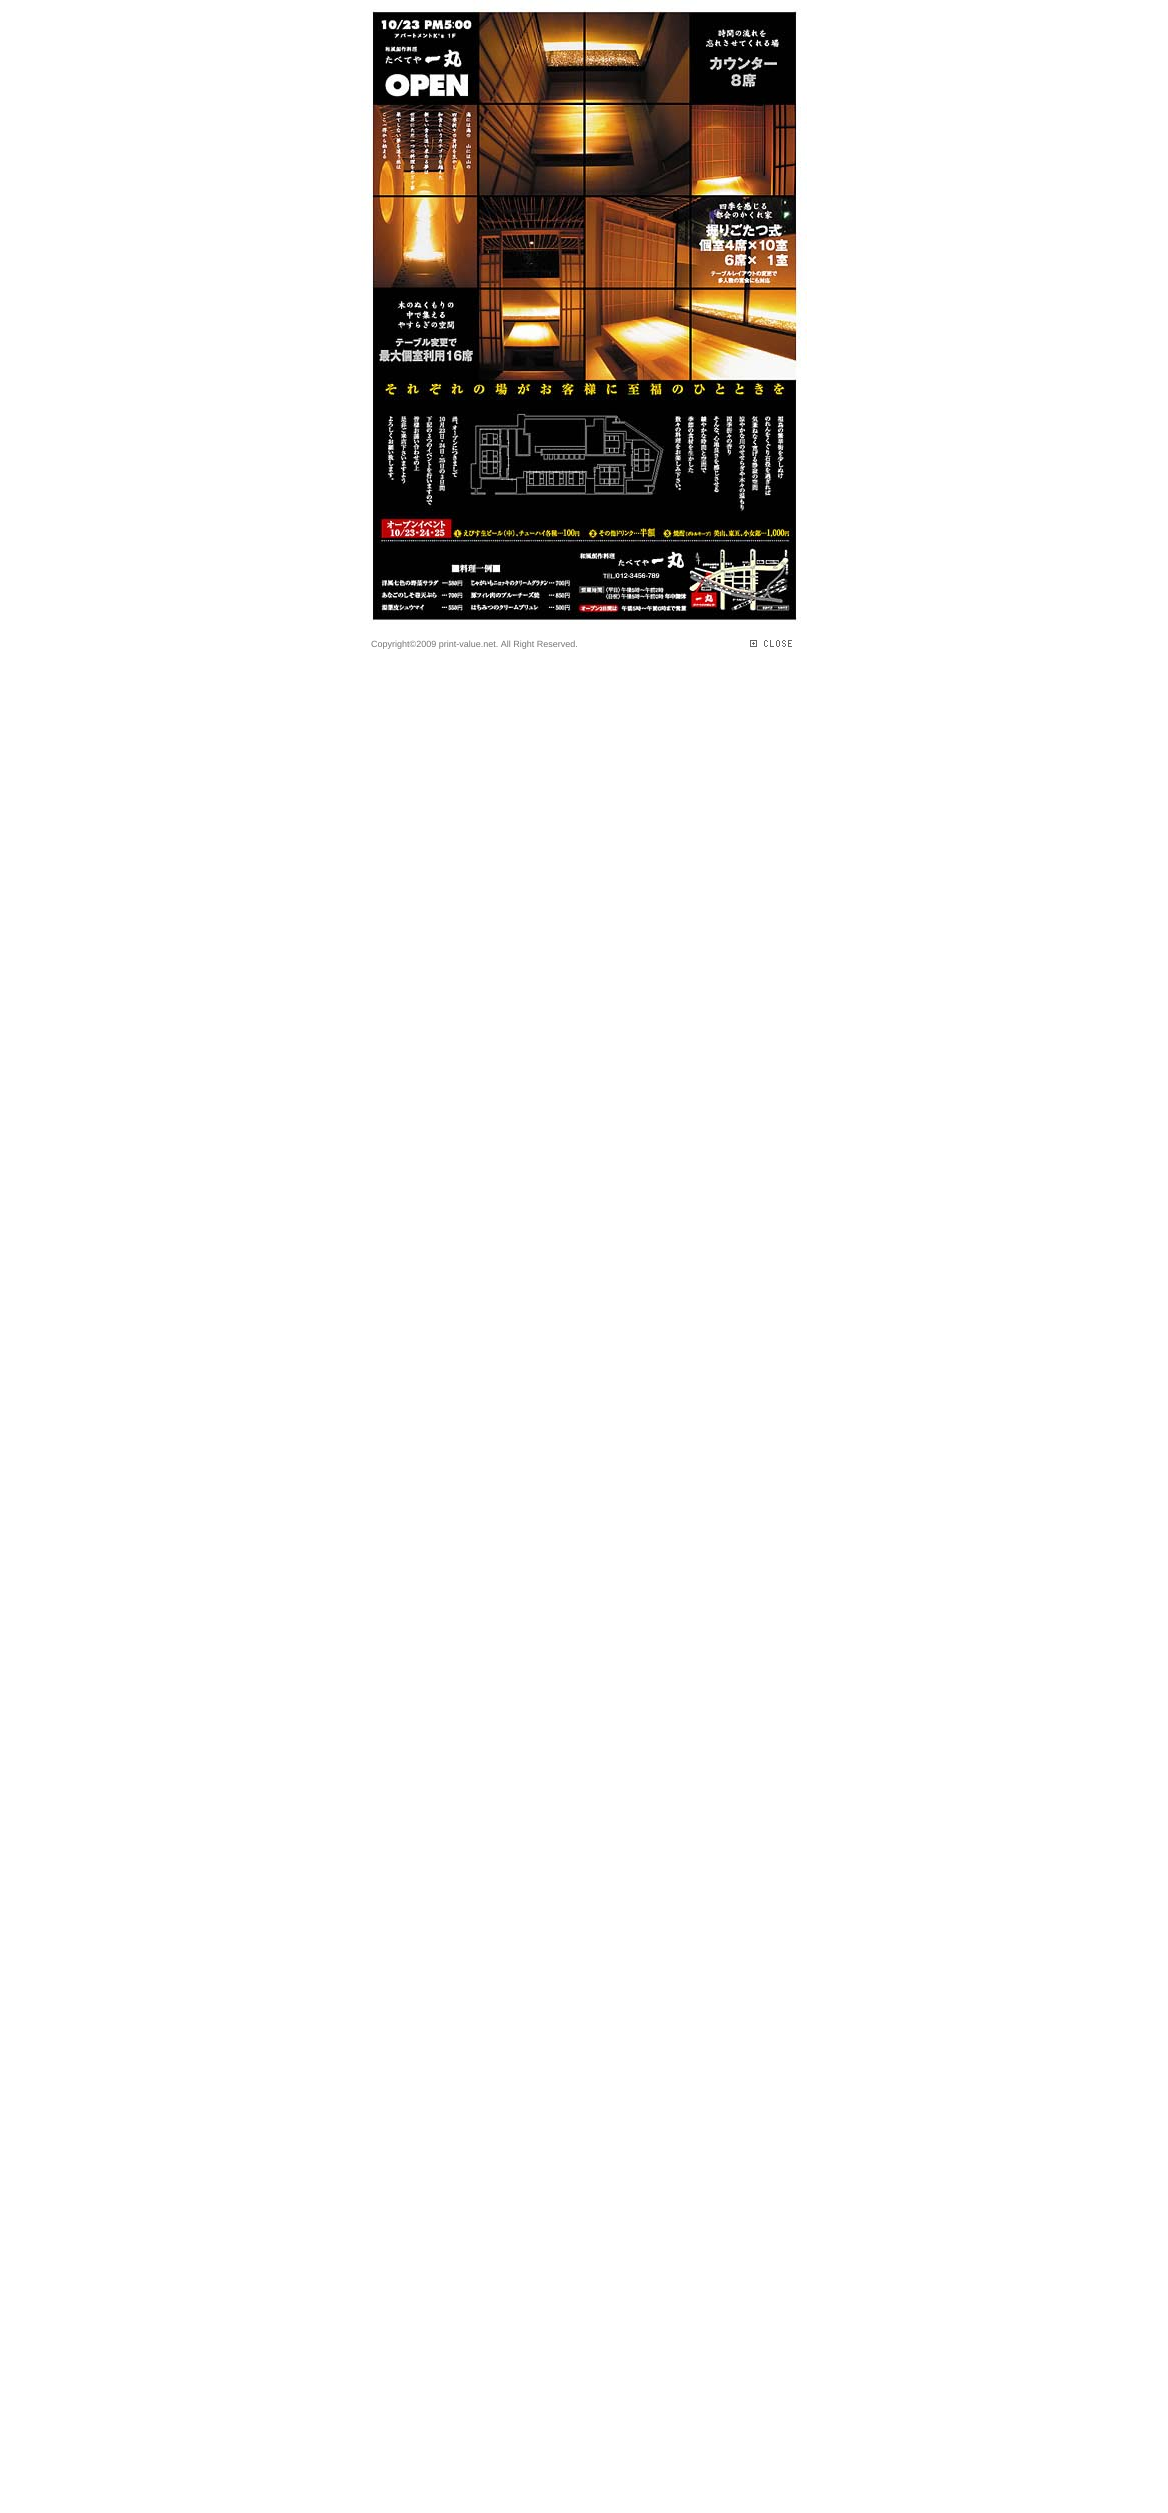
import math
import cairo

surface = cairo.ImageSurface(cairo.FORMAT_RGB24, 1168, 2513)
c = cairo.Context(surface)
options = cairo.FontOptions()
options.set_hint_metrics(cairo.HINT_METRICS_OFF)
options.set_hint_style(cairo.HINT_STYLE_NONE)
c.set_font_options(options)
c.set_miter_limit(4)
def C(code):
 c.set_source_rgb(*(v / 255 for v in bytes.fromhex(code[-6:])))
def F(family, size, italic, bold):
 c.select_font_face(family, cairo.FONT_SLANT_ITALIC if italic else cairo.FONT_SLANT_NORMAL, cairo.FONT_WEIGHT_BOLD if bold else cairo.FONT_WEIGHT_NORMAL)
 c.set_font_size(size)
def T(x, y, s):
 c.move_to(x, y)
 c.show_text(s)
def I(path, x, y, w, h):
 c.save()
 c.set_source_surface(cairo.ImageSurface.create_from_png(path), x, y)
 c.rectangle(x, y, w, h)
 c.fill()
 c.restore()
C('ffffff')
c.paint()
I('1.png',361,0,446,624)
F('Liberation Sans',9,0,0)
C('757575')
T(371,647,'Copyright©2009 print-value.net. All Right Reserved.')
I('2.png',750,640,42,7)
surface.write_to_png('o.png')
